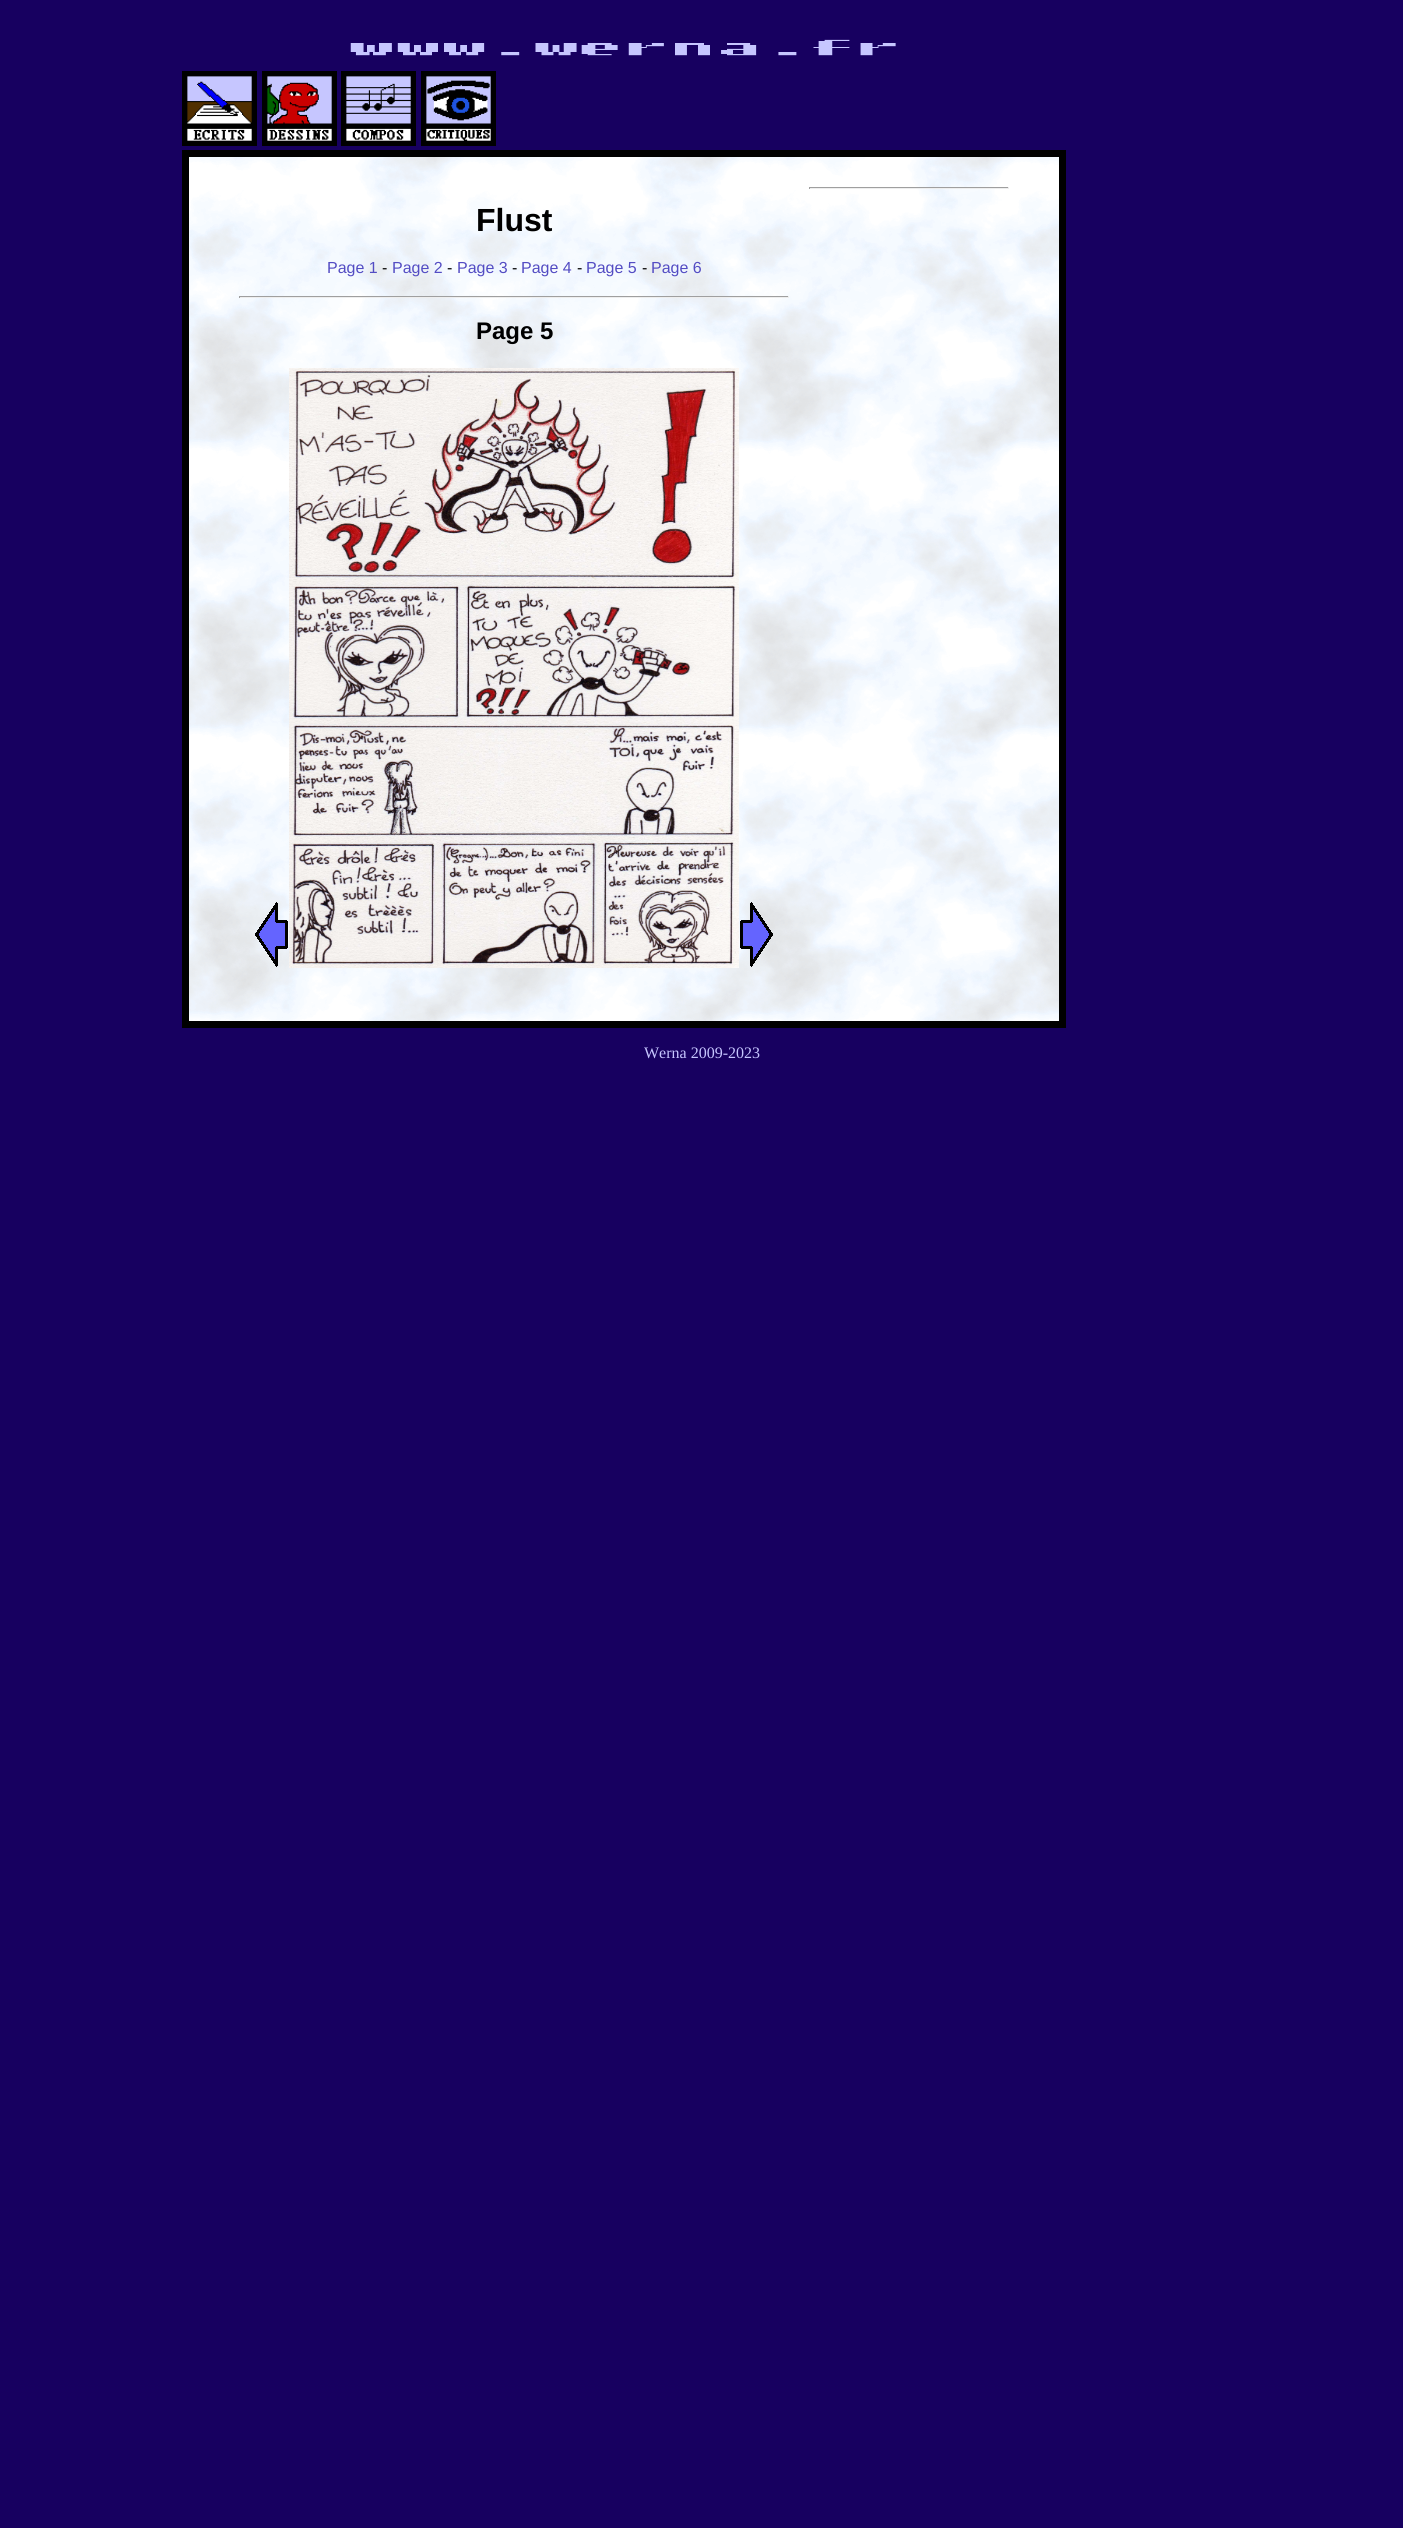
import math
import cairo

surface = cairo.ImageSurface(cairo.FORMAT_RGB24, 1403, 2528)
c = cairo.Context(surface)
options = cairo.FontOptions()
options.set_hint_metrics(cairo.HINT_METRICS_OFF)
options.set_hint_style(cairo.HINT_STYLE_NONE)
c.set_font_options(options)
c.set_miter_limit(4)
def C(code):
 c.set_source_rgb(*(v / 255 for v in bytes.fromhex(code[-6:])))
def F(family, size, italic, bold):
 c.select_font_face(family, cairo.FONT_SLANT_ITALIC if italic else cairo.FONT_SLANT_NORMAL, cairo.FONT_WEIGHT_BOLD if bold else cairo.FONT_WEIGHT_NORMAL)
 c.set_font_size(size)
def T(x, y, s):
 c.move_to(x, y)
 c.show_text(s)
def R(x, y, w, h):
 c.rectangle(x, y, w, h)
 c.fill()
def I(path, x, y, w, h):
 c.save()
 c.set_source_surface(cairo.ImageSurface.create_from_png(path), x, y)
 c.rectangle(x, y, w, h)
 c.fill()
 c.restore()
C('170060')
c.paint()
I('1.png',350,39,546,17)
I('2.png',182,71,75,75)
I('3.png',262,71,75,75)
I('4.png',341,71,75,75)
I('5.png',421,71,75,75)
I('6.png',189,157,870,864)
c.rectangle(185.5,153.5,877,871)
C('000000')
c.set_line_width(7)
c.stroke()
C('9f9f9f')
R(809,187,200,1)
C('eeeeee')
R(1008,187,1,2)
R(809,188,200,1)
C('9f9f9f')
R(809,187,1,2)
F('Liberation Sans',32,0,1)
C('000000')
T(476,231,'Flust')
F('Liberation Sans',16,0,0)
C('534cc3')
T(327,273,'Page 1')
C('000000')
T(382,273,'-')
C('534cc3')
T(392,273,'Page 2')
C('000000')
T(447,273,'-')
C('534cc3')
T(457,273,'Page 3')
C('000000')
T(512,273,'-')
C('534cc3')
T(521,273,'Page 4')
C('000000')
T(577,273,'-')
C('534cc3')
T(586,273,'Page 5')
C('000000')
T(642,273,'-')
C('534cc3')
T(651,273,'Page 6')
C('9f9f9f')
R(239,296,550,1)
C('eeeeee')
R(788,296,1,2)
R(239,297,550,1)
C('9f9f9f')
R(239,296,1,2)
F('Liberation Sans',24,0,1)
C('000000')
T(476,339,'Page 5')
I('7.png',255,902,33,65)
I('8.png',289,368,450,600)
I('9.png',740,902,33,65)
F('Liberation Serif',16,0,0)
C('c6c6ff')
T(644,1058,'Werna 2009-2023')
surface.write_to_png('o.png')
